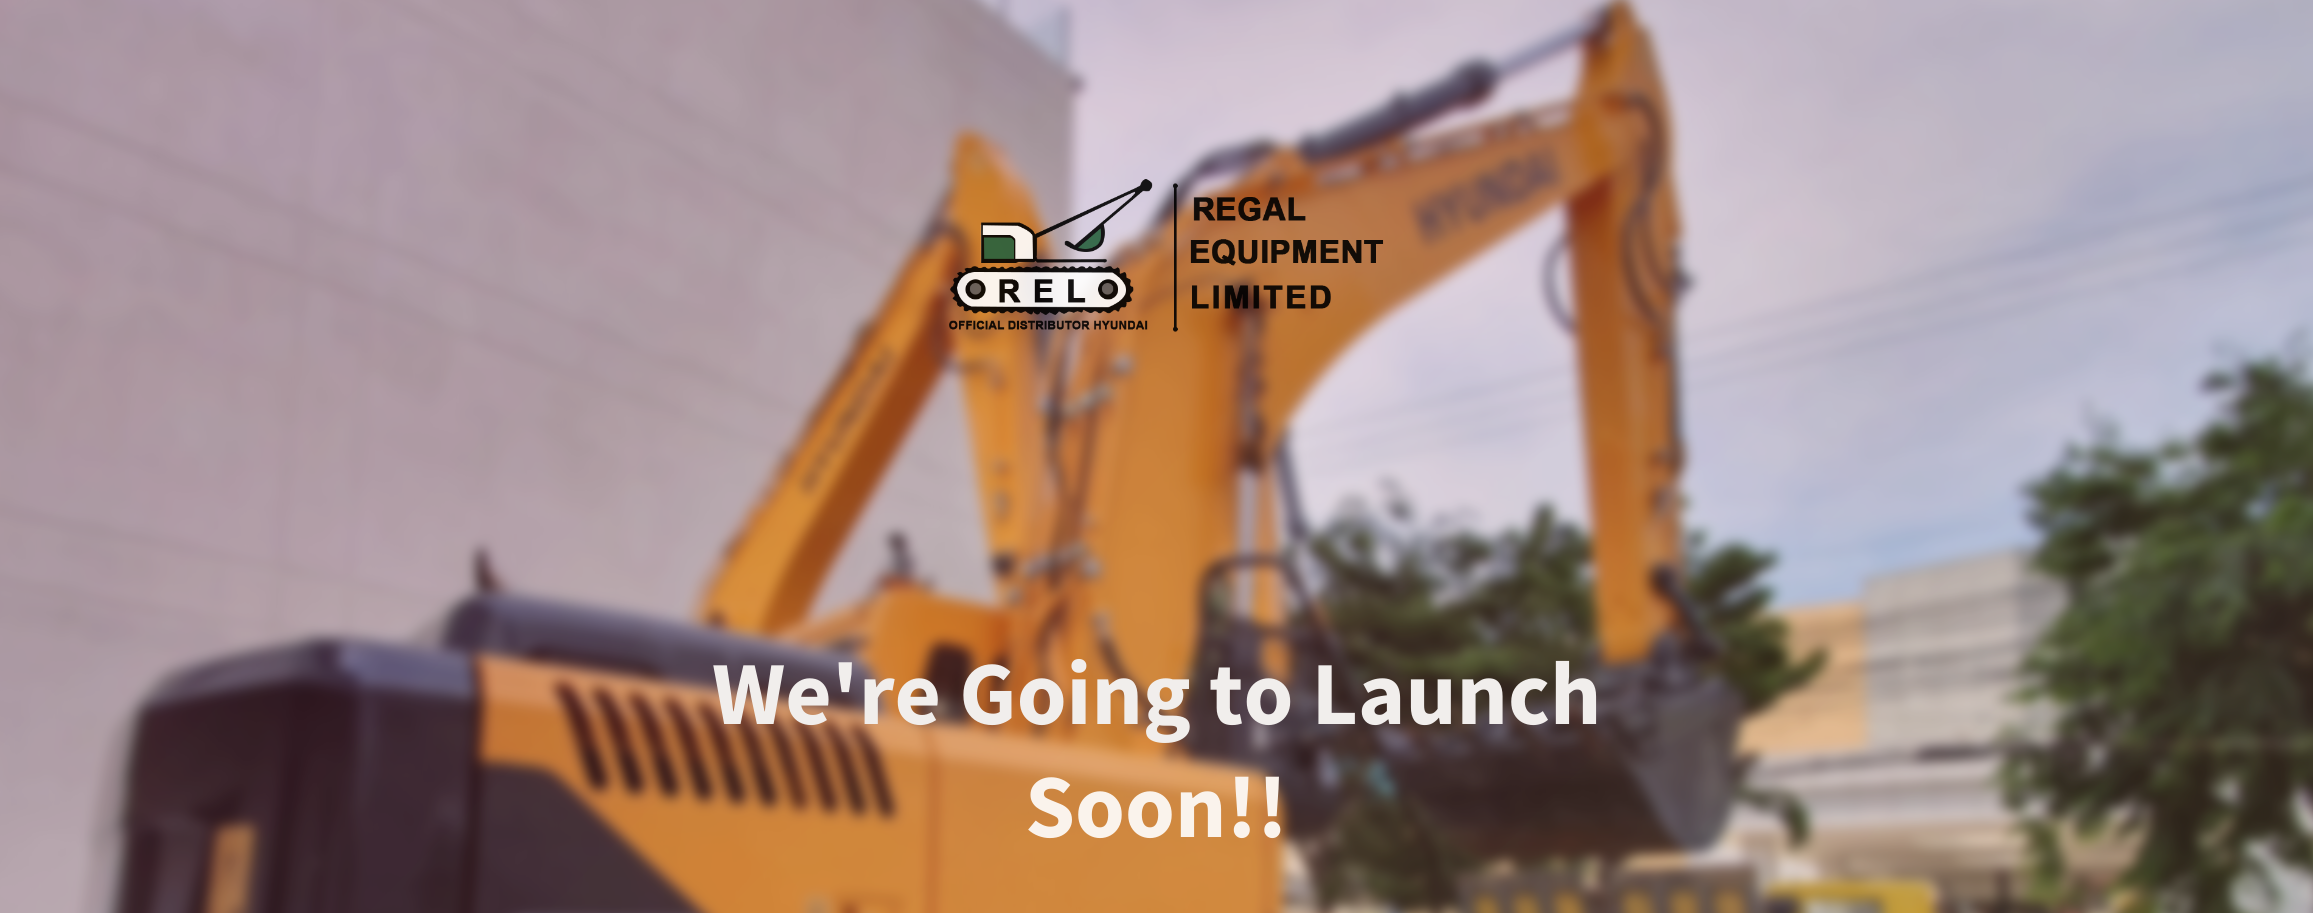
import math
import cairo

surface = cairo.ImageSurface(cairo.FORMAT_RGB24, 2313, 913)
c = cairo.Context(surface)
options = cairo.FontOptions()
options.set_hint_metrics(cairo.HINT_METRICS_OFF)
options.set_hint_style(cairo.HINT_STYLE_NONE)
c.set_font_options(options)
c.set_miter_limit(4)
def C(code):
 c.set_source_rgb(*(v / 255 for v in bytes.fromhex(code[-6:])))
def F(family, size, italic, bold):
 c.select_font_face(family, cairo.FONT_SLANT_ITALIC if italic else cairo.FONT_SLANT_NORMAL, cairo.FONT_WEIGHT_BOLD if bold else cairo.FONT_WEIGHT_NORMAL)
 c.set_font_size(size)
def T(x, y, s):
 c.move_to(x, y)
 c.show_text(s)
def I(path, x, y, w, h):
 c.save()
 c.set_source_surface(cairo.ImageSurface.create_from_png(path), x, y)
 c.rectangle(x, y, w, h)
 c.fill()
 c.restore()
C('ffffff')
c.paint()
I('1.png',0,0,2313,913)
I('2.png',949,179,435,153)
F('Source Sans Pro',90,0,1)
C('f1eeec')
T(712,724,'We\'re Going to Launch')
C('faf3ec')
T(1025,837,'Soon!!')
surface.write_to_png('o.png')
